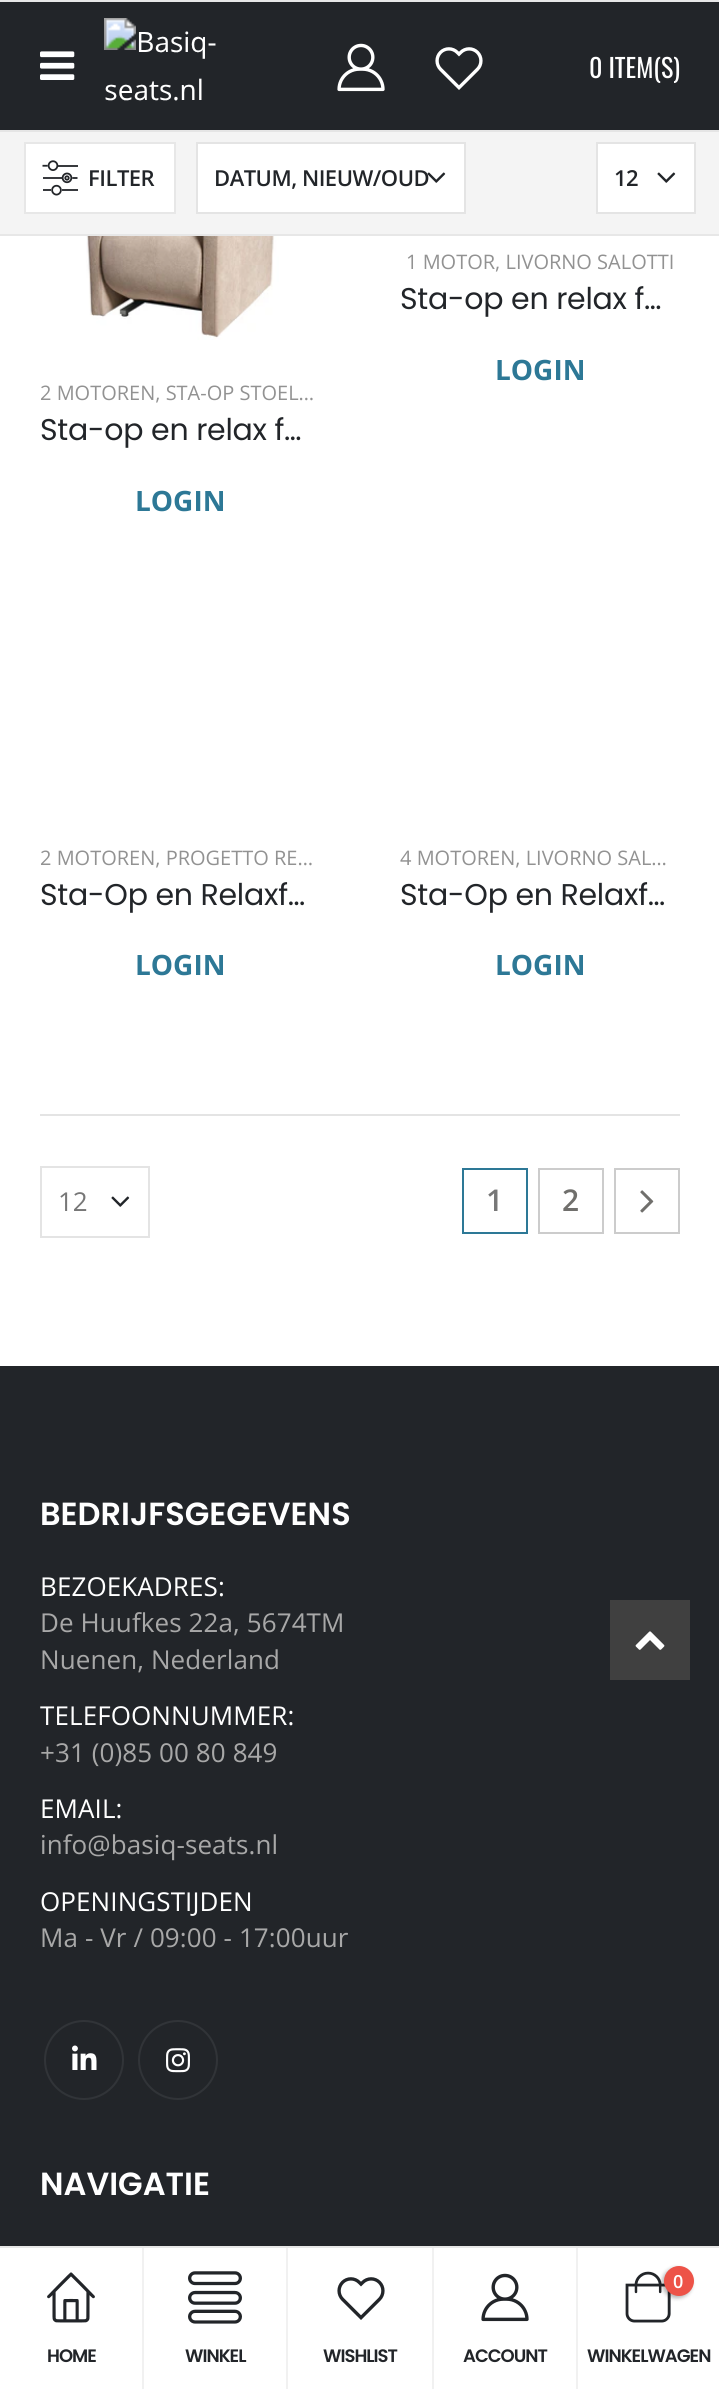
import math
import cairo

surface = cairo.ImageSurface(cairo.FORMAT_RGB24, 719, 2389)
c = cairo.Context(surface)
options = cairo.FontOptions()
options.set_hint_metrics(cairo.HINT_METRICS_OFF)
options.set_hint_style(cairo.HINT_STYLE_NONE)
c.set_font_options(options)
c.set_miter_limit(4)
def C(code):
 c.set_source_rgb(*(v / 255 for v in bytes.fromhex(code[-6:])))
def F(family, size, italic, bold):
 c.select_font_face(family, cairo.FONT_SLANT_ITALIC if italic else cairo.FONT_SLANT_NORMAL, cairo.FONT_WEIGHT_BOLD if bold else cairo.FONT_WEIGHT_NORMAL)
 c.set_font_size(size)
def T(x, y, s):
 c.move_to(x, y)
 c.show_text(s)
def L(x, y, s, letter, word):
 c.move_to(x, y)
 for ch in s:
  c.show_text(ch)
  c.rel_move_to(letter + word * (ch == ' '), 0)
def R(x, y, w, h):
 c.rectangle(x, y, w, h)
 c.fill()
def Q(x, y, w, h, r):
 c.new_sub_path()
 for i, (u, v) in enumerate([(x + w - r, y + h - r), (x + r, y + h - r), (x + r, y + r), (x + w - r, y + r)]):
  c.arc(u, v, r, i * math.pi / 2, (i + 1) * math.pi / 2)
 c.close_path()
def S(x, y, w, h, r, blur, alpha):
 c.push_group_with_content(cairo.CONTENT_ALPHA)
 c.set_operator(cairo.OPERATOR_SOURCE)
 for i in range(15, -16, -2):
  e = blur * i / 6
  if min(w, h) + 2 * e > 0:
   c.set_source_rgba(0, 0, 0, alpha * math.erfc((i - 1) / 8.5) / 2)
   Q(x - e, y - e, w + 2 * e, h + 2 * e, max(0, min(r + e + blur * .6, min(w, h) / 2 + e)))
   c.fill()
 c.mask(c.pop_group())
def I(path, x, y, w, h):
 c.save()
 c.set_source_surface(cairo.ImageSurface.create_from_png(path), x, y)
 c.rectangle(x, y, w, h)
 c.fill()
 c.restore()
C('ffffff')
c.paint()
C('e5e5e5')
R(0,130,719,2)
C('222529')
R(0,2,719,128)
C('e7e7e7')
R(0,0,719,2)
I('1.png',40,51,35,29)
I('2.png',104,18,112,83)
I('3.png',337,43,48,49)
I('4.png',435,47,48,43)
F('Oswald',26,0,0)
C('ffffff')
T(589,78,'0 ITEM(S)')
C('f4f4f4')
R(0,132,719,102)
C('e7e7e7')
R(0,234,719,2)
C('ffffff')
c.rectangle(25,143,150,70)
c.fill_preserve()
C('e7e7e7')
c.stroke()
I('5.png',42,160,36,36)
F('Open Sans SemiBold',22,0,0)
C('222529')
L(88,186,'FILTER',-.5,0)
C('ffffff')
c.rectangle(197,143,268,70)
c.fill_preserve()
C('e4e4e4')
c.stroke()
C('222529')
L(214,186,'DATUM, NIEUW/OUD',-.5,0)
I('6.png',427,172,19,11)
C('ffffff')
c.rectangle(597,143,98,70)
c.fill_preserve()
C('e4e4e4')
c.stroke()
C('222529')
L(614,186,'12',-.5,0)
I('7.png',657,172,19,11)
F('Open Sans',20,0,0)
C('929292')
T(406,269,'1 MOTOR, LIVORNO SALOTTI')
F('Poppins',30,0,0)
C('222529')
L(400,309,'Sta-op en relax f…',-.25,0)
F('Open Sans',28,0,1)
C('2d7896')
T(495,380,'LOGIN')
I('8.png',86,236,193,104)
F('Open Sans',20,0,0)
C('929292')
T(40,400,'2 MOTOREN, STA-OP STOEL…')
F('Poppins',30,0,0)
C('222529')
L(40,440,'Sta-op en relax f…',-.25,0)
F('Open Sans',28,0,1)
C('2d7896')
T(135,511,'LOGIN')
F('Open Sans',20,0,0)
C('929292')
T(40,865,'2 MOTOREN, PROGETTO RE…')
F('Poppins',30,0,0)
C('222529')
L(40,905,'Sta-Op en Relaxf…',-.25,0)
F('Open Sans',28,0,1)
C('2d7896')
T(135,975,'LOGIN')
F('Open Sans',20,0,0)
C('929292')
T(400,865,'4 MOTOREN, LIVORNO SAL…')
F('Poppins',30,0,0)
C('222529')
L(400,905,'Sta-Op en Relaxf…',-.25,0)
F('Open Sans',28,0,1)
C('2d7896')
T(495,975,'LOGIN')
C('e4e4e4')
R(40,1114,640,2)
c.rectangle(41,1167,108,70)
c.stroke()
F('Open Sans',26,0,0)
C('777777')
T(58,1211,'12')
I('7.png',111,1196,19,11)
c.rectangle(463,1169,64,64)
C('2d7896')
c.stroke()
F('Open Sans SemiBold',30,0,0)
C('777777')
T(486,1211,'1')
c.rectangle(539,1169,64,64)
C('cccccc')
c.stroke()
C('706f6c')
T(562,1211,'2')
c.rectangle(615,1169,64,64)
C('cccccc')
c.stroke()
I('9.png',640,1190,14,23)
C('222529')
R(0,1366,719,880)
F('Poppins SemiBold',32,0,0)
C('ffffff')
T(40,1525,'BEDRIJFSGEGEVENS')
F('Open Sans',26,0,0)
L(40,1596,'BEZOEKADRES:',.1,0)
C('a8a8a8')
L(40,1632,'De Huufkes 22a, 5674TM',.1,0)
L(40,1669,'Nuenen, Nederland',.1,0)
C('ffffff')
L(40,1725,'TELEFOONNUMMER:',.1,0)
C('a8a8a8')
L(40,1762,'+31 (0)85 00 80 849',.1,0)
C('ffffff')
L(40,1818,'EMAIL:',.1,0)
C('a8a8a8')
L(40,1854,'info@basiq-seats.nl',.1,0)
C('ffffff')
L(40,1911,'OPENINGSTIJDEN',.1,0)
C('a8a8a8')
L(40,1947,'Ma - Vr / 09:00 - 17:00uur',.1,0)
c.new_path()
c.arc(84,2060,39,0,2 * math.pi)
C('313438')
c.stroke()
I('10.png',72,2045,25,25)
c.arc(178,2060,39,0,2 * math.pi)
c.stroke()
I('11.png',166,2048,24,25)
F('Poppins SemiBold',32,0,0)
C('ffffff')
T(40,2195,'NAVIGATIE')
C('404040')
R(610,1600,80,80)
I('12.png',635,1631,30,19)
C('e7e7e7')
R(0,2246,719,2)
I('13.png',47,2272,48,51)
F('Poppins SemiBold',18,0,0)
C('222529')
L(47,2362,'HOME',-1,0)
C('f1f1f1')
R(142,2248,2,141)
I('14.png',188,2271,54,53)
C('222529')
L(185,2362,'WINKEL',-1,0)
C('f1f1f1')
R(286,2248,2,141)
I('15.png',337,2277,48,43)
C('222529')
L(323,2362,'WISHLIST',-1,0)
C('f1f1f1')
R(432,2248,2,141)
I('16.png',481,2273,48,49)
C('222529')
L(463,2362,'ACCOUNT',-1,0)
C('f1f1f1')
R(576,2248,2,141)
I('17.png',625,2271,46,52)
C('000000')
S(662,2268,30,30,15,2,.3)
C('ed5348')
c.arc(679,2281,15,0,2 * math.pi)
c.fill()
F('Open Sans SemiBold',18,0,0)
C('ffffff')
T(673,2288,'0')
F('Poppins SemiBold',18,0,0)
C('222529')
L(587,2362,'WINKELWAGEN',-1,0)
surface.write_to_png('o.png')
